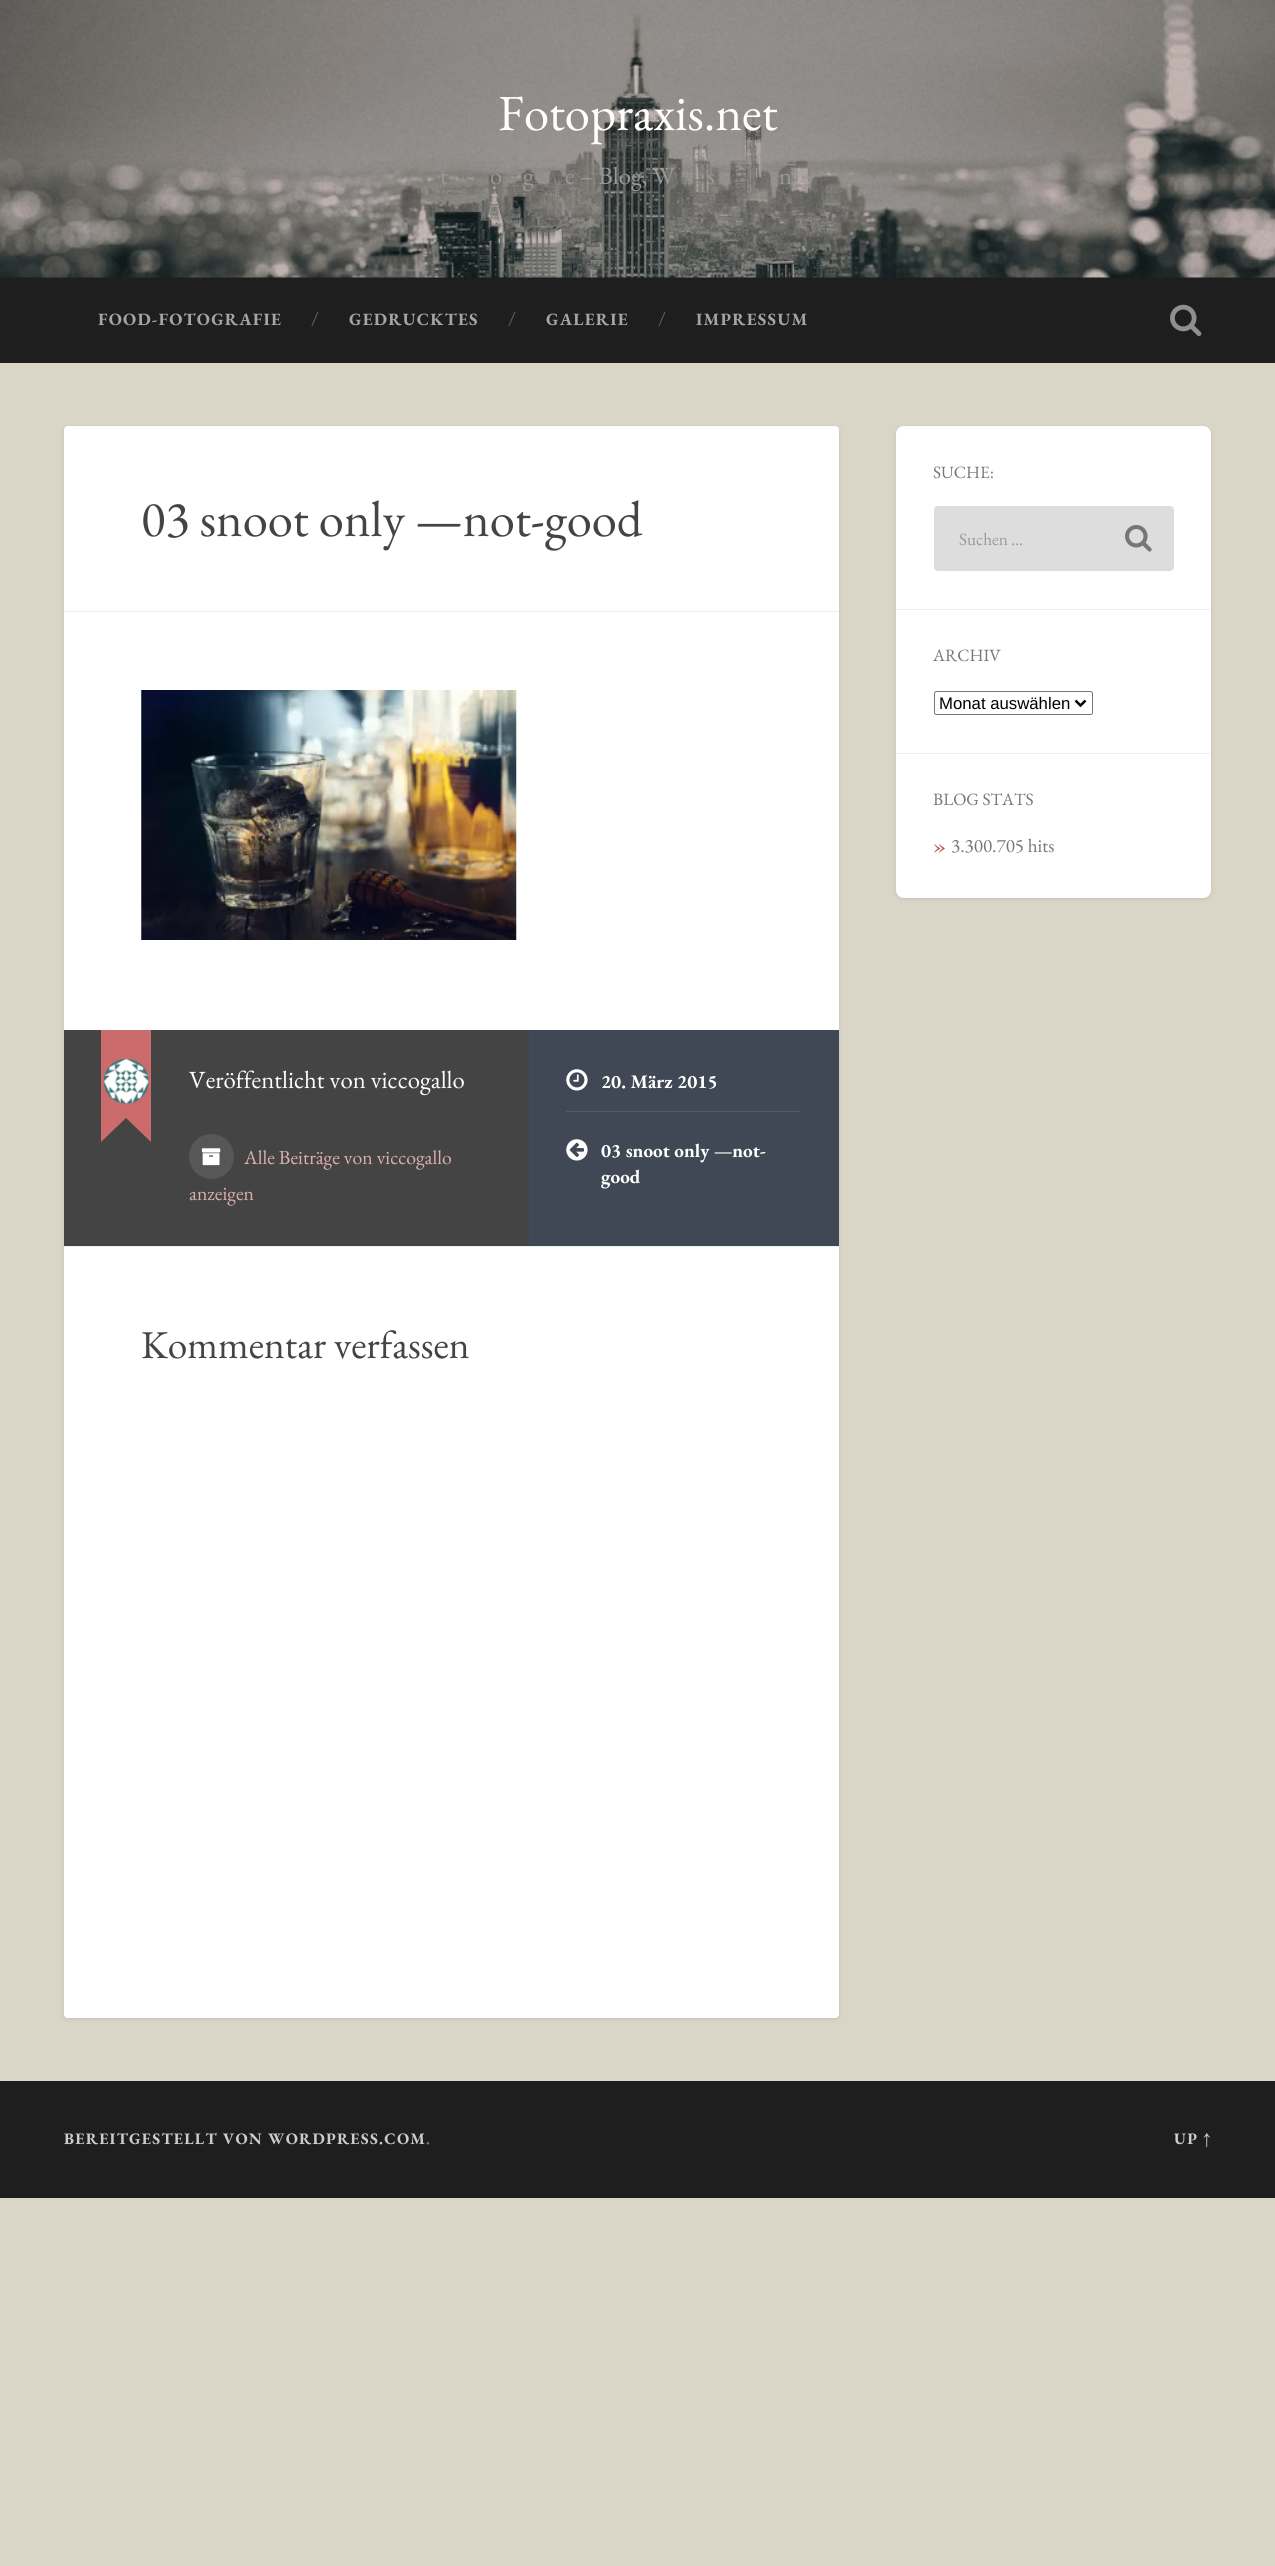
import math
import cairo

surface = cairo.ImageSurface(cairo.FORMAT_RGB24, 1275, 2566)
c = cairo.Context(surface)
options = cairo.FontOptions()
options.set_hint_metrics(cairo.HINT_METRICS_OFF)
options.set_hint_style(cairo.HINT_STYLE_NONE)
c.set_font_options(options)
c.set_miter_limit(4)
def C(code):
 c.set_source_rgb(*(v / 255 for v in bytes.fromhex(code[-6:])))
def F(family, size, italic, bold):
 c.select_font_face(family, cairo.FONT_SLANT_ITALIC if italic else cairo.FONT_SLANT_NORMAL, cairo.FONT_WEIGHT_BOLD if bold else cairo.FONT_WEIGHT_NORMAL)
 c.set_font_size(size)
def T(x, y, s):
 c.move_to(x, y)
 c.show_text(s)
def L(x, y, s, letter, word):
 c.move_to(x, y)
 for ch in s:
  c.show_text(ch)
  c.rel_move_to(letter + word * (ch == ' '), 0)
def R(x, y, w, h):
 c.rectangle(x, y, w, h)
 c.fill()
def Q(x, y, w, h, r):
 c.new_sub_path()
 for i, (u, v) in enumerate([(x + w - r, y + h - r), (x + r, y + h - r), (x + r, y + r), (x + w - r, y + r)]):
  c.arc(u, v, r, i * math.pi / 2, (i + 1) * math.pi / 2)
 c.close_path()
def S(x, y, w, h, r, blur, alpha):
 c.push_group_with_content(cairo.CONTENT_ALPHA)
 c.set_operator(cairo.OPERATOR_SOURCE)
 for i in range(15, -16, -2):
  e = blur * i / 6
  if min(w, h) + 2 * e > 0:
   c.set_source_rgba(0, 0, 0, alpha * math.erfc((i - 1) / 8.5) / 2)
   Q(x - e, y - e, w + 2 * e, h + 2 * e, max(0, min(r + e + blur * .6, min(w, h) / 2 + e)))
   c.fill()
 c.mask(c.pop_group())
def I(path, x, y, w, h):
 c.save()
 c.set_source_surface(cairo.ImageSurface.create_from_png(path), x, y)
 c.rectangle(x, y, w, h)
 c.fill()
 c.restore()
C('d9d6c8')
c.paint()
C('1e1e1e')
R(0,277,1275,86)
I('1.png',0,0,1275,278)
F('EB Garamond',50.6,0,0)
C('ffffff')
T(498,130,'Fotopraxis.net')
F('EB Garamond',24.75,0,0)
C('999999')
T(440,184,'t')
T(490,184,'o')
T(523,184,'g')
T(565,184,'e – Blog, W')
T(707,184,'s')
T(779,184,'n')
F('EB Garamond',17.25,0,1)
C('a5a5a5')
L(98,325,'FOOD-FOTOGRAFIE',1.25,0)
F('EB Garamond',20,0,0)
C('626262')
T(311,325,'/')
F('EB Garamond',17.25,0,1)
C('a5a5a5')
L(349,325,'GEDRUCKTES',1.25,0)
F('EB Garamond',20,0,0)
C('626262')
T(508,325,'/')
F('EB Garamond',17.25,0,1)
C('a5a5a5')
L(546,325,'GALERIE',1.25,0)
F('EB Garamond',20,0,0)
C('626262')
T(658,325,'/')
F('EB Garamond',17.25,0,1)
C('a5a5a5')
L(696,325,'IMPRESSUM',1.25,0)
I('2.png',1170,304,32,32)
C('000000')
S(64,428,775,1591,4,2.5,.1)
C('ffffff')
Q(64,426,775,1592,4)
c.fill()
C('eeeeee')
R(64,611,775,1)
F('EB Garamond',50.6,0,0)
C('444444')
T(141,536,'03 snoot only —not-good')
I('3.png',141,690,376,250)
R(64,1030,465,216)
C('cb6b6b')
c.new_path()
c.move_to(151,1092)
c.line_to(151,1142)
c.line_to(126,1118)
c.close_path()
c.move_to(101,1142)
c.line_to(101,1092)
c.line_to(126,1118)
c.close_path()
c.fill()
R(101,1030,50,88)
I('4.png',103,1058,46,46)
F('EB Garamond',24.75,0,0)
C('ffffff')
T(189,1088,'Veröffentlicht von viccogallo')
C('575757')
c.new_path()
c.arc(211.5,1156.5,22.5,0,2 * math.pi)
c.fill()
I('5.png',201,1148,20,18)
F('EB Garamond',19.75,0,0)
C('deafaf')
T(244,1164,'Alle Beiträge von viccogallo')
T(189,1200,'anzeigen')
C('3f4854')
R(529,1030,310,216)
I('6.png',566,1069,22,22)
F('EB Garamond',19.1,0,1)
C('ffffff')
T(601,1088,'20. März 2015')
C('525a65')
R(566,1111,235,1)
I('7.png',566,1139,22,22)
C('ffffff')
T(601,1157,'03 snoot only —not-')
T(601,1183,'good')
c.new_path()
c.move_to(64,1246)
c.line_to(839,1246)
c.line_to(839,2014)
c.curve_to(839,2016,837,2018,835,2018)
c.line_to(68,2018)
c.curve_to(66,2018,64,2016,64,2014)
c.close_path()
c.fill()
C('eeeeee')
R(64,1246,775,1)
F('EB Garamond',39.4,0,0)
C('444444')
T(141,1358,'Kommentar verfassen')
C('000000')
S(896,428,315,471,8,2.5,.1)
C('ffffff')
Q(896,426,315,472,8)
c.fill()
F('EB Garamond',17.25,0,0)
C('767676')
T(933,478,'SUCHE:')
C('dddddd')
Q(934,506,240,65,4)
c.fill()
C('999999')
T(959,545,'Suchen …')
I('8.png',1125,524,27,28)
C('eeeeee')
R(896,609,315,1)
C('767676')
T(933,661,'ARCHIV')
Q(934.5,691.5,158,23,2)
c.set_line_width(1)
c.stroke()
c.new_path()
c.move_to(1075.5,700.5)
c.line_to(1080.5,705.5)
c.line_to(1085.5,700.5)
C('000000')
c.set_line_width(2.5)
c.stroke()
F('Liberation Sans',16.75,0,0)
T(939,709,'Monat auswählen')
C('eeeeee')
R(896,753,315,1)
F('EB Garamond',17.25,0,0)
C('767676')
T(933,805,'BLOG STATS')
F('EB Garamond',22,0,0)
C('bc4747')
T(933,853,'»')
F('EB Garamond',19.1,0,0)
C('767676')
T(951,852,'3.300.705 hits')
C('1e1e1e')
R(0,2081,1275,117)
F('EB Garamond',16,0,1)
C('cccccc')
L(64,2144,'BEREITGESTELLT VON WORDPRESS.COM',1.25,0)
C('767676')
L(426,2144,'.',1.25,0)
C('cccccc')
L(1174,2144,'UP ↑',1.25,0)
surface.write_to_png('o.png')
